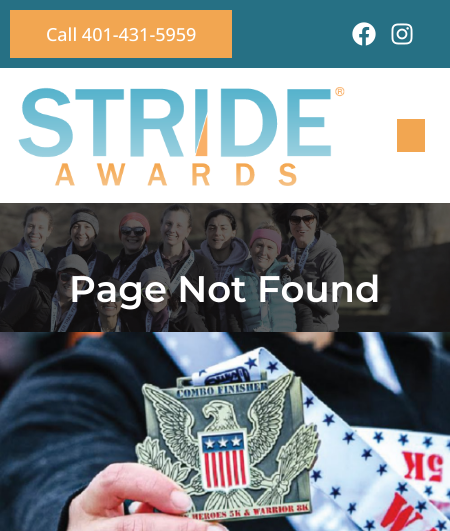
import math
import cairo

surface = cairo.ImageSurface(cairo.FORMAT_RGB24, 450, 531)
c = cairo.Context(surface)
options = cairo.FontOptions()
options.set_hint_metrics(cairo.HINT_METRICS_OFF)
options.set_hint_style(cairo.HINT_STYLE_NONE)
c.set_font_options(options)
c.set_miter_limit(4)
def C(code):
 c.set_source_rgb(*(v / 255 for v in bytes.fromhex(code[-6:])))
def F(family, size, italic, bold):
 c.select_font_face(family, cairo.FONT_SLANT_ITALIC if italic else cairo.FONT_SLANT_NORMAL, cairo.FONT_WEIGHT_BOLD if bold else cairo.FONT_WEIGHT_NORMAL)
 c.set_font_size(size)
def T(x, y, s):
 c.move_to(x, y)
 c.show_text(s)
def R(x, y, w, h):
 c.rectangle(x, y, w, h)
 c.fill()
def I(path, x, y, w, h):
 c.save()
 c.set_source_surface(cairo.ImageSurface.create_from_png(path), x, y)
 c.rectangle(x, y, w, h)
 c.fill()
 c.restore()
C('ffffff')
c.paint()
C('267084')
R(0,0,450,68)
C('f2a651')
R(10,10,222,48)
F('Open Sans Medium',18,0,0)
C('ffffff')
T(46,41,'Call 401-431-5959')
I('1.png',352,22,24,24)
I('2.png',391,23,22,22)
I('3.png',18,87,327,99)
C('f2a651')
R(397,119,28,33)
I('4.png',0,203,450,129)
F('Montserrat SemiBold',37,0,0)
C('ffffff')
T(69,302,'Page Not Found')
I('5.png',0,332,450,199)
surface.write_to_png('o.png')
